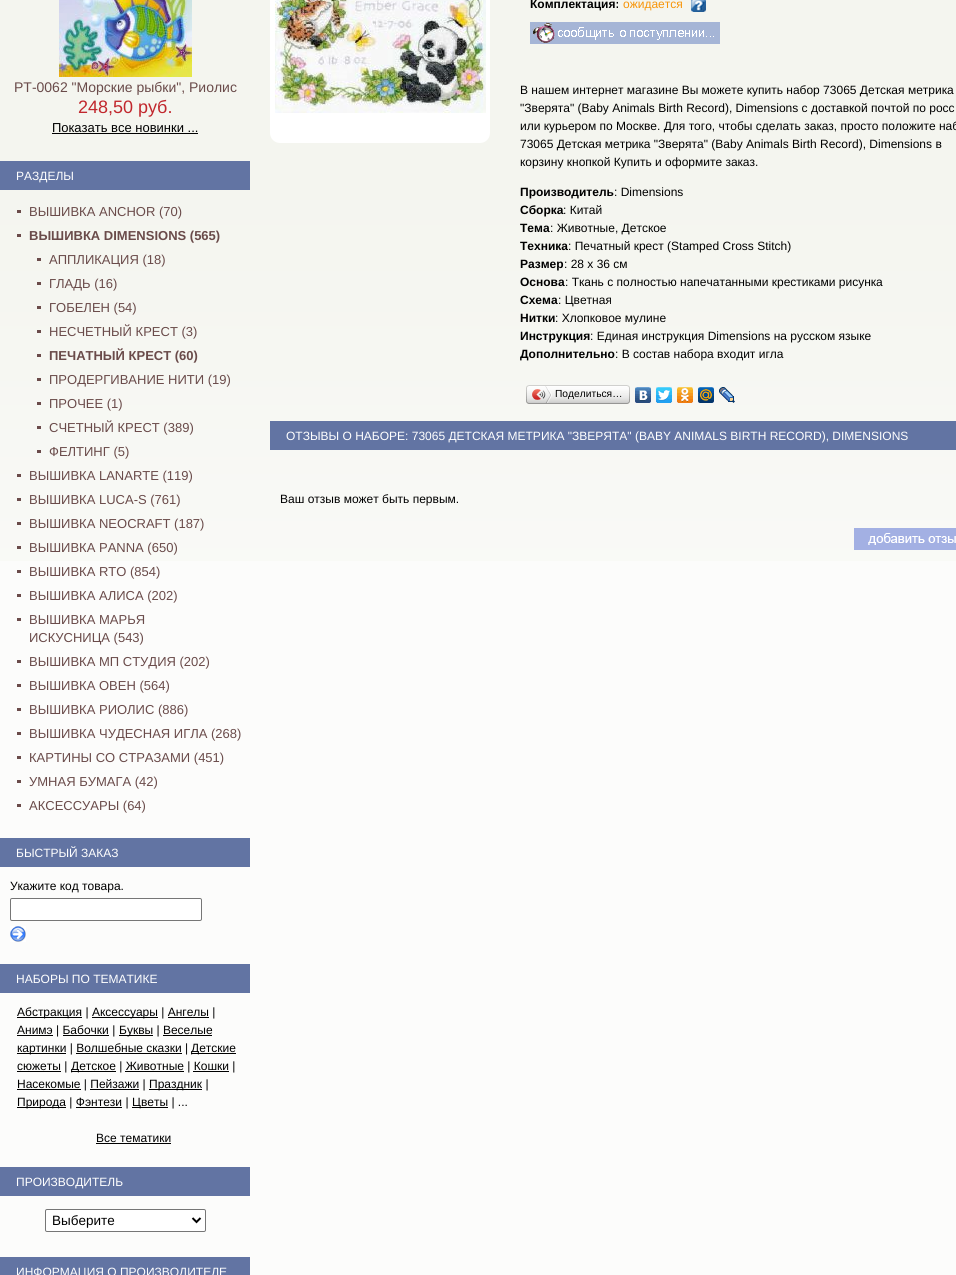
import math
import cairo

surface = cairo.ImageSurface(cairo.FORMAT_RGB24, 956, 1275)
c = cairo.Context(surface)
options = cairo.FontOptions()
options.set_hint_metrics(cairo.HINT_METRICS_OFF)
options.set_hint_style(cairo.HINT_STYLE_NONE)
c.set_font_options(options)
c.set_miter_limit(4)
def C(code):
 c.set_source_rgb(*(v / 255 for v in bytes.fromhex(code[-6:])))
def F(family, size, italic, bold):
 c.select_font_face(family, cairo.FONT_SLANT_ITALIC if italic else cairo.FONT_SLANT_NORMAL, cairo.FONT_WEIGHT_BOLD if bold else cairo.FONT_WEIGHT_NORMAL)
 c.set_font_size(size)
def T(x, y, s):
 c.move_to(x, y)
 c.show_text(s)
def R(x, y, w, h):
 c.rectangle(x, y, w, h)
 c.fill()
def Q(x, y, w, h, r):
 c.new_sub_path()
 for i, (u, v) in enumerate([(x + w - r, y + h - r), (x + r, y + h - r), (x + r, y + r), (x + w - r, y + r)]):
  c.arc(u, v, r, i * math.pi / 2, (i + 1) * math.pi / 2)
 c.close_path()
def I(path, x, y, w, h):
 c.save()
 c.set_source_surface(cairo.ImageSurface.create_from_png(path), x, y)
 c.rectangle(x, y, w, h)
 c.fill()
 c.restore()
C('fcfcfb')
c.paint()
I('1.png',0,0,956,561)
I('2.png',59,0,133,77)
F('Liberation Sans',14,0,0)
C('6a4b4a')
T(14,92,'РТ-0062 "Морские рыбки", Риолис')
F('Liberation Sans',18,0,0)
C('c1272d')
T(78,113,'248,50 руб.')
F('Liberation Sans',13,0,0)
C('000000')
T(52,132,'Показать все новинки ...')
R(52,133,146,1)
C('6274a3')
R(0,161,250,29)
F('Liberation Sans',12,0,0)
C('ffffff')
T(16,180,'РАЗДЕЛЫ')
C('6a4b4a')
R(17,210,4,3)
F('Liberation Sans',13,0,0)
T(29,216,'ВЫШИВКА ANCHOR (70)')
R(17,234,4,3)
F('Liberation Sans',13,0,1)
T(29,240,'ВЫШИВКА DIMENSIONS (565)')
R(37,258,4,3)
F('Liberation Sans',13,0,0)
T(49,264,'АППЛИКАЦИЯ (18)')
R(37,282,4,3)
T(49,288,'ГЛАДЬ (16)')
R(37,306,4,3)
T(49,312,'ГОБЕЛЕН (54)')
R(37,330,4,3)
T(49,336,'НЕСЧЕТНЫЙ КРЕСТ (3)')
R(37,354,4,3)
F('Liberation Sans',13,0,1)
T(49,360,'ПЕЧАТНЫЙ КРЕСТ (60)')
R(37,378,4,3)
F('Liberation Sans',13,0,0)
T(49,384,'ПРОДЕРГИВАНИЕ НИТИ (19)')
R(37,402,4,3)
T(49,408,'ПРОЧЕЕ (1)')
R(37,426,4,3)
T(49,432,'СЧЕТНЫЙ КРЕСТ (389)')
R(37,450,4,3)
T(49,456,'ФЕЛТИНГ (5)')
R(17,474,4,3)
T(29,480,'ВЫШИВКА LANARTE (119)')
R(17,498,4,3)
T(29,504,'ВЫШИВКА LUCA-S (761)')
R(17,522,4,3)
T(29,528,'ВЫШИВКА NEOCRAFT (187)')
R(17,546,4,3)
T(29,552,'ВЫШИВКА PANNA (650)')
R(17,570,4,3)
T(29,576,'ВЫШИВКА RTO (854)')
R(17,594,4,3)
T(29,600,'ВЫШИВКА АЛИСА (202)')
R(17,618,4,3)
T(29,624,'ВЫШИВКА МАРЬЯ')
T(29,642,'ИСКУСНИЦА (543)')
R(17,660,4,3)
T(29,666,'ВЫШИВКА МП СТУДИЯ (202)')
R(17,684,4,3)
T(29,690,'ВЫШИВКА ОВЕН (564)')
R(17,708,4,3)
T(29,714,'ВЫШИВКА РИОЛИС (886)')
R(17,732,4,3)
T(29,738,'ВЫШИВКА ЧУДЕСНАЯ ИГЛА (268)')
R(17,756,4,3)
T(29,762,'КАРТИНЫ СО СТРАЗАМИ (451)')
R(17,780,4,3)
T(29,786,'УМНАЯ БУМАГА (42)')
R(17,804,4,3)
T(29,810,'АКСЕССУАРЫ (64)')
C('6274a3')
R(0,838,250,29)
F('Liberation Sans',12,0,0)
C('ffffff')
T(16,857,'БЫСТРЫЙ ЗАКАЗ')
C('000000')
T(10,890,'Укажите код товара.')
C('ffffff')
Q(10.5,898.5,191,22,1.5)
c.fill_preserve()
C('767676')
c.set_line_width(1)
c.stroke()
I('3.png',10,926,16,16)
C('6274a3')
R(0,964,250,29)
C('ffffff')
T(16,983,'НАБОРЫ ПО ТЕМАТИКЕ')
C('000000')
R(17,1017,65,1)
T(17,1016,'Абстракция |')
R(92,1017,66,1)
T(92,1016,'Аксессуары | Ангелы |')
R(168,1017,41,1)
R(17,1035,36,1)
T(17,1034,'Анимэ | Бабочки |')
R(119,1035,34,1)
T(119,1034,'Буквы | Веселые')
R(63,1035,46,1)
R(17,1053,49,1)
T(17,1052,'картинки | Волшебные сказки |')
R(163,1035,49,1)
R(191,1053,45,1)
T(191,1052,'Детские')
R(76,1053,106,1)
R(17,1071,44,1)
T(17,1070,'сюжеты |')
R(71,1071,45,1)
T(71,1070,'Детское | Животные | Кошки |')
R(125,1071,59,1)
R(193,1071,36,1)
R(17,1089,64,1)
T(17,1088,'Насекомые | Пейзажи |')
R(149,1089,53,1)
T(149,1088,'Праздник |')
R(90,1089,49,1)
R(17,1107,49,1)
T(17,1106,'Природа | Фэнтези |')
R(132,1107,36,1)
T(132,1106,'Цветы | ...')
R(76,1107,46,1)
T(96,1142,'Все тематики')
R(96,1143,75,1)
C('6274a3')
R(0,1167,250,29)
C('ffffff')
T(16,1186,'ПРОИЗВОДИТЕЛЬ')
Q(45.5,1209.5,160,22,1.5)
c.fill_preserve()
C('767676')
c.stroke()
c.new_path()
c.move_to(192.5,1218)
c.line_to(196.5,1222)
c.line_to(200.5,1218)
C('000000')
c.set_line_width(2)
c.stroke()
F('Liberation Sans',13.5,0,0)
T(52,1225,'Выберите')
C('6274a3')
R(0,1257,250,18)
F('Liberation Sans',12,0,0)
C('ffffff')
T(16,1276,'ИНФОРМАЦИЯ О ПРОИЗВОДИТЕЛЕ')
Q(270,-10,220,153,10)
c.fill()
I('4.png',275,0,211,113)
F('Liberation Sans',12,0,1)
C('000000')
T(530,8,'Комплектация:')
F('Liberation Sans',12,0,0)
C('f79509')
T(623,8,'ожидается')
I('5.png',691,0,15,12)
I('6.png',530,22,190,22)
C('000000')
T(520,94,'В нашем интернет магазине Вы можете купить набор 73065 Детская метрика')
T(520,112,'"Зверята" (Baby Animals Birth Record), Dimensions с доставкой почтой по росс')
T(520,130,'или курьером по Москве. Для того, чтобы сделать заказ, просто положите наб')
T(520,148,'73065 Детская метрика "Зверята" (Baby Animals Birth Record), Dimensions в')
T(520,166,'корзину кнопкой Купить и оформите заказ.')
F('Liberation Sans',12,0,1)
T(520,196,'Производитель')
F('Liberation Sans',12,0,0)
T(614,196,': Dimensions')
F('Liberation Sans',12,0,1)
T(520,214,'Сборка')
F('Liberation Sans',12,0,0)
T(563,214,': Китай')
F('Liberation Sans',12,0,1)
T(520,232,'Тема')
F('Liberation Sans',12,0,0)
T(550,232,': Животные, Детское')
F('Liberation Sans',12,0,1)
T(520,250,'Техника')
F('Liberation Sans',12,0,0)
T(568,250,': Печатный крест (Stamped Cross Stitch)')
F('Liberation Sans',12,0,1)
T(520,268,'Размер')
F('Liberation Sans',12,0,0)
T(564,268,': 28 х 36 см')
F('Liberation Sans',12,0,1)
T(520,286,'Основа')
F('Liberation Sans',12,0,0)
T(565,286,': Ткань с полностью напечатанными крестиками рисунка')
F('Liberation Sans',12,0,1)
T(520,304,'Схема')
F('Liberation Sans',12,0,0)
T(558,304,': Цветная')
F('Liberation Sans',12,0,1)
T(520,322,'Нитки')
F('Liberation Sans',12,0,0)
T(555,322,': Хлопковое мулине')
F('Liberation Sans',12,0,1)
T(520,340,'Инструкция')
F('Liberation Sans',12,0,0)
T(590,340,': Единая инструкция Dimensions на русском языке')
F('Liberation Sans',12,0,1)
T(520,358,'Дополнительно')
F('Liberation Sans',12,0,0)
T(615,358,': В состав набора входит игла')
I('7.png',529,385,98,19)
I('8.png',526,385,3,19)
I('9.png',532,386,20,17)
F('Liberation Sans',10.25,0,0)
T(555,397,'Поделиться…')
I('10.png',627,385,3,19)
I('11.png',635,387,16,16)
I('12.png',656,387,16,16)
I('13.png',677,387,16,16)
I('14.png',698,387,16,16)
I('15.png',719,387,16,16)
C('6274a3')
R(270,421,686,29)
F('Liberation Sans',12,0,0)
C('ffffff')
T(286,440,'ОТЗЫВЫ О НАБОРЕ: 73065 ДЕТСКАЯ МЕТРИКА "ЗВЕРЯТА" (BABY ANIMALS BIRTH RECORD), DIMENSIONS')
C('000000')
T(280,503,'Ваш отзыв может быть первым.')
I('16.png',854,528,102,22)
surface.write_to_png('o.png')
